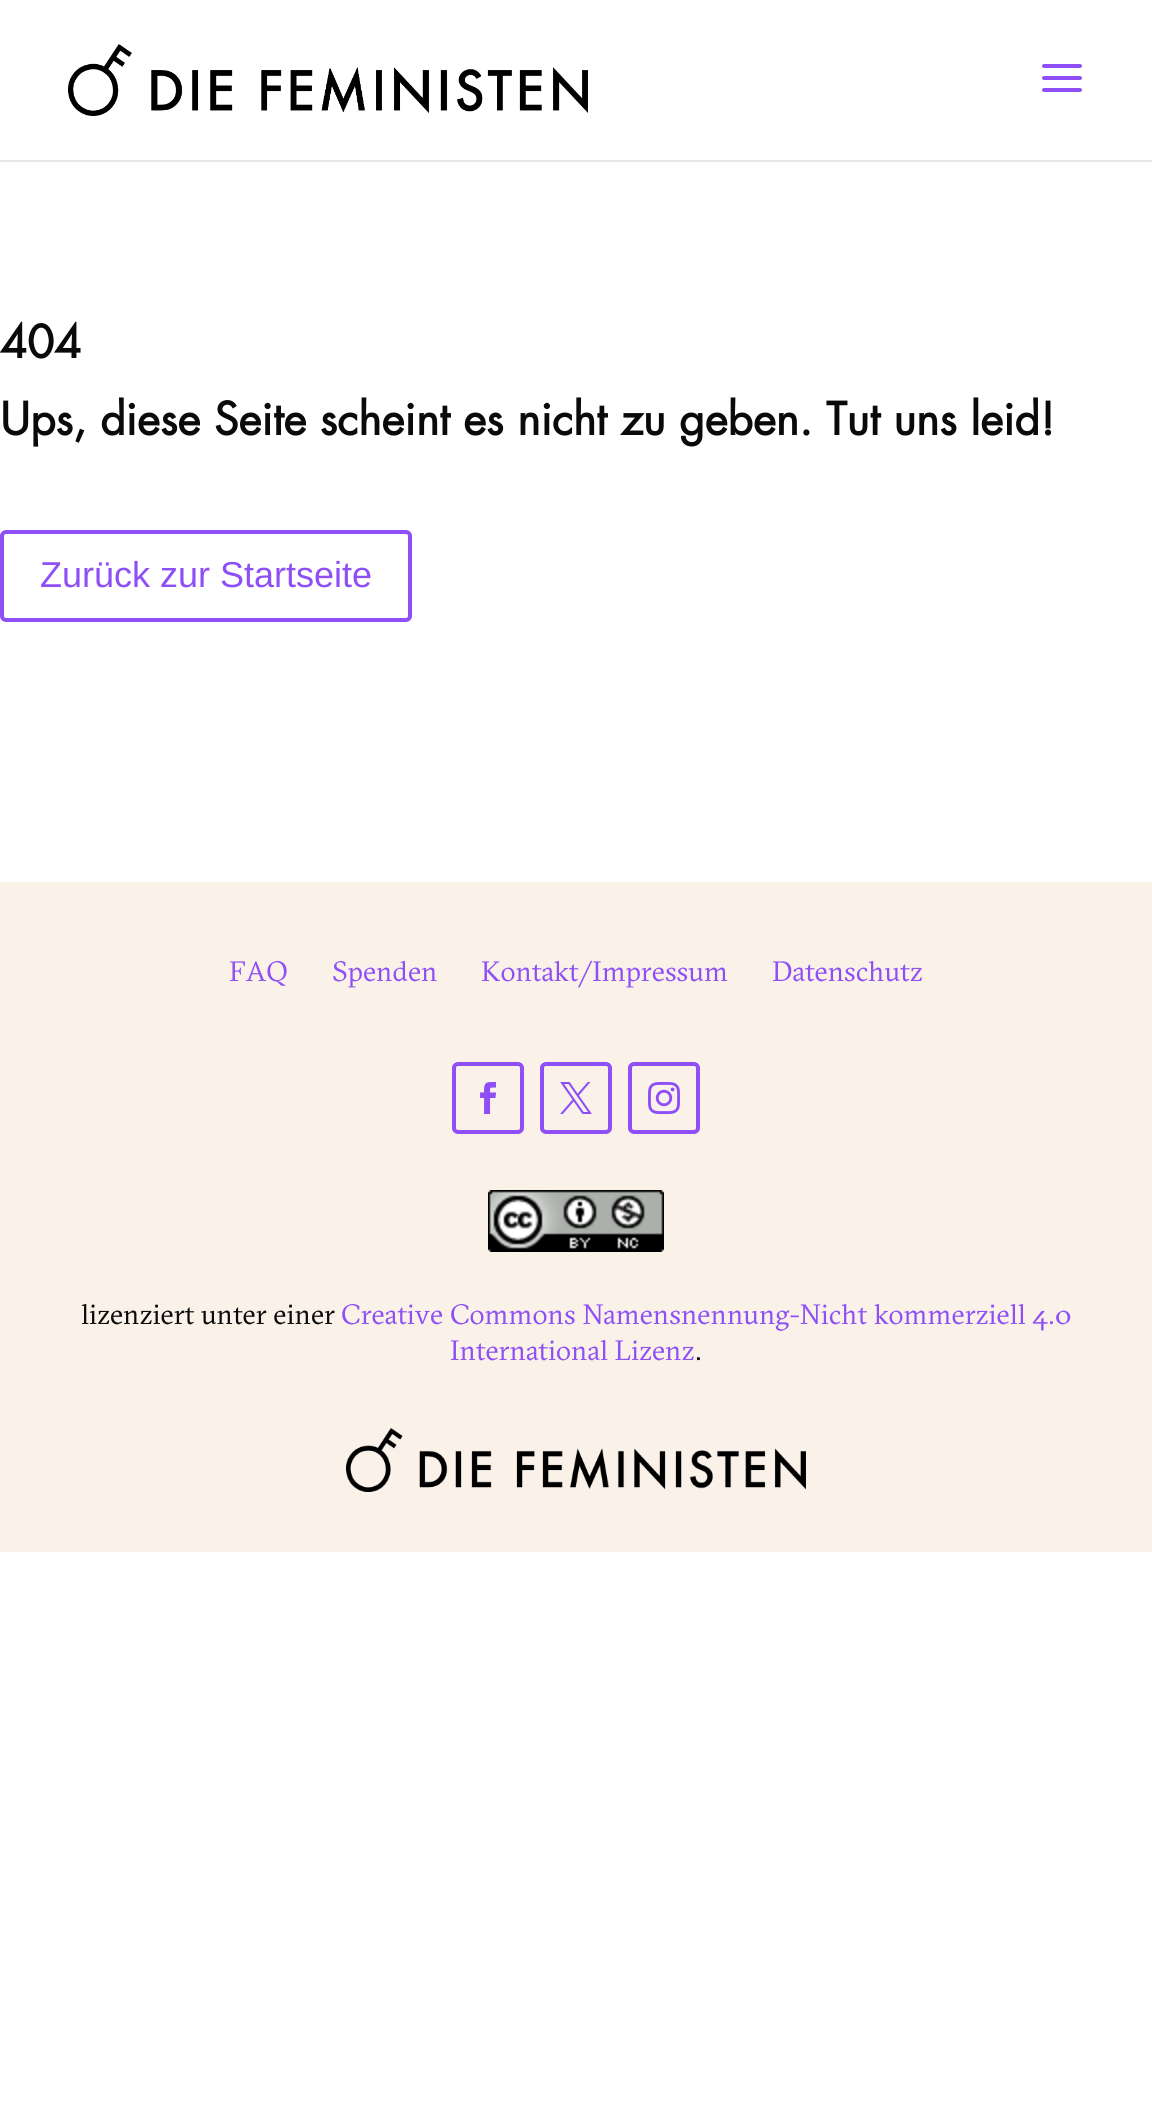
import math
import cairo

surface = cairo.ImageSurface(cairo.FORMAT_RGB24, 1152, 2122)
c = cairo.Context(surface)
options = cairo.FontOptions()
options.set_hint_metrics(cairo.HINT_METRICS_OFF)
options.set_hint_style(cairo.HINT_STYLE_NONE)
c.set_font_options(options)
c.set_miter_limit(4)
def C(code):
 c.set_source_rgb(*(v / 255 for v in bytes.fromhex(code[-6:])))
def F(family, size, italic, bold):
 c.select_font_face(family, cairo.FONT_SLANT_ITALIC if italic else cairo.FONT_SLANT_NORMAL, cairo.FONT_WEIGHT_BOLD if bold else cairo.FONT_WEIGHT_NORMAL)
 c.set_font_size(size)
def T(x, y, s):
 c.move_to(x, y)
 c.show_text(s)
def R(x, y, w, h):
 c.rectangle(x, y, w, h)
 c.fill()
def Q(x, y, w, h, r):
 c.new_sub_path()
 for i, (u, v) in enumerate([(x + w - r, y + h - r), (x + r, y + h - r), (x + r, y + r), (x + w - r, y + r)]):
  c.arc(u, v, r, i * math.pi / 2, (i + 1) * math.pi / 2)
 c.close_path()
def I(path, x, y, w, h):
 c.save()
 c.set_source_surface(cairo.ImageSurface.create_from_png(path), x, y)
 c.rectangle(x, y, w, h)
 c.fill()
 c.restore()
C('ffffff')
c.paint()
C('e6e6e6')
R(0,160,1152,2)
I('1.png',68,44,520,72)
I('2.png',1042,64,40,28)
F('Futura',44,0,1)
C('0a0a0a')
T(0,358,'404')
T(0,435,'Ups, diese Seite scheint es nicht zu geben. Tut uns leid!')
Q(2,532,408,88,4)
C('8f4ff6')
c.set_line_width(4)
c.stroke()
F('Liberation Sans',36,0,0)
T(40,587,'Zurück zur Startseite')
C('faf2e9')
R(0,882,1152,670)
F('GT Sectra',28,0,0)
C('8f4ff6')
T(229,981,'FAQ')
T(332,981,'Spenden')
T(481,981,'Kontakt/Impressum')
T(772,981,'Datenschutz')
Q(454,1064,68,68,4)
c.stroke()
I('3.png',480,1082,17,32)
Q(542,1064,68,68,4)
c.stroke()
I('4.png',560,1082,32,32)
Q(630,1064,68,68,4)
c.stroke()
I('5.png',648,1082,32,32)
I('6.png',488,1190,176,62)
C('0a0a0a')
T(81,1324,'lizenziert unter einer')
C('8f4ff6')
T(341,1324,'Creative Commons Namensnennung-Nicht kommerziell 4.0')
T(450,1360,'International Lizenz')
C('0a0a0a')
T(695,1360,'.')
I('7.png',346,1428,460,64)
surface.write_to_png('o.png')
